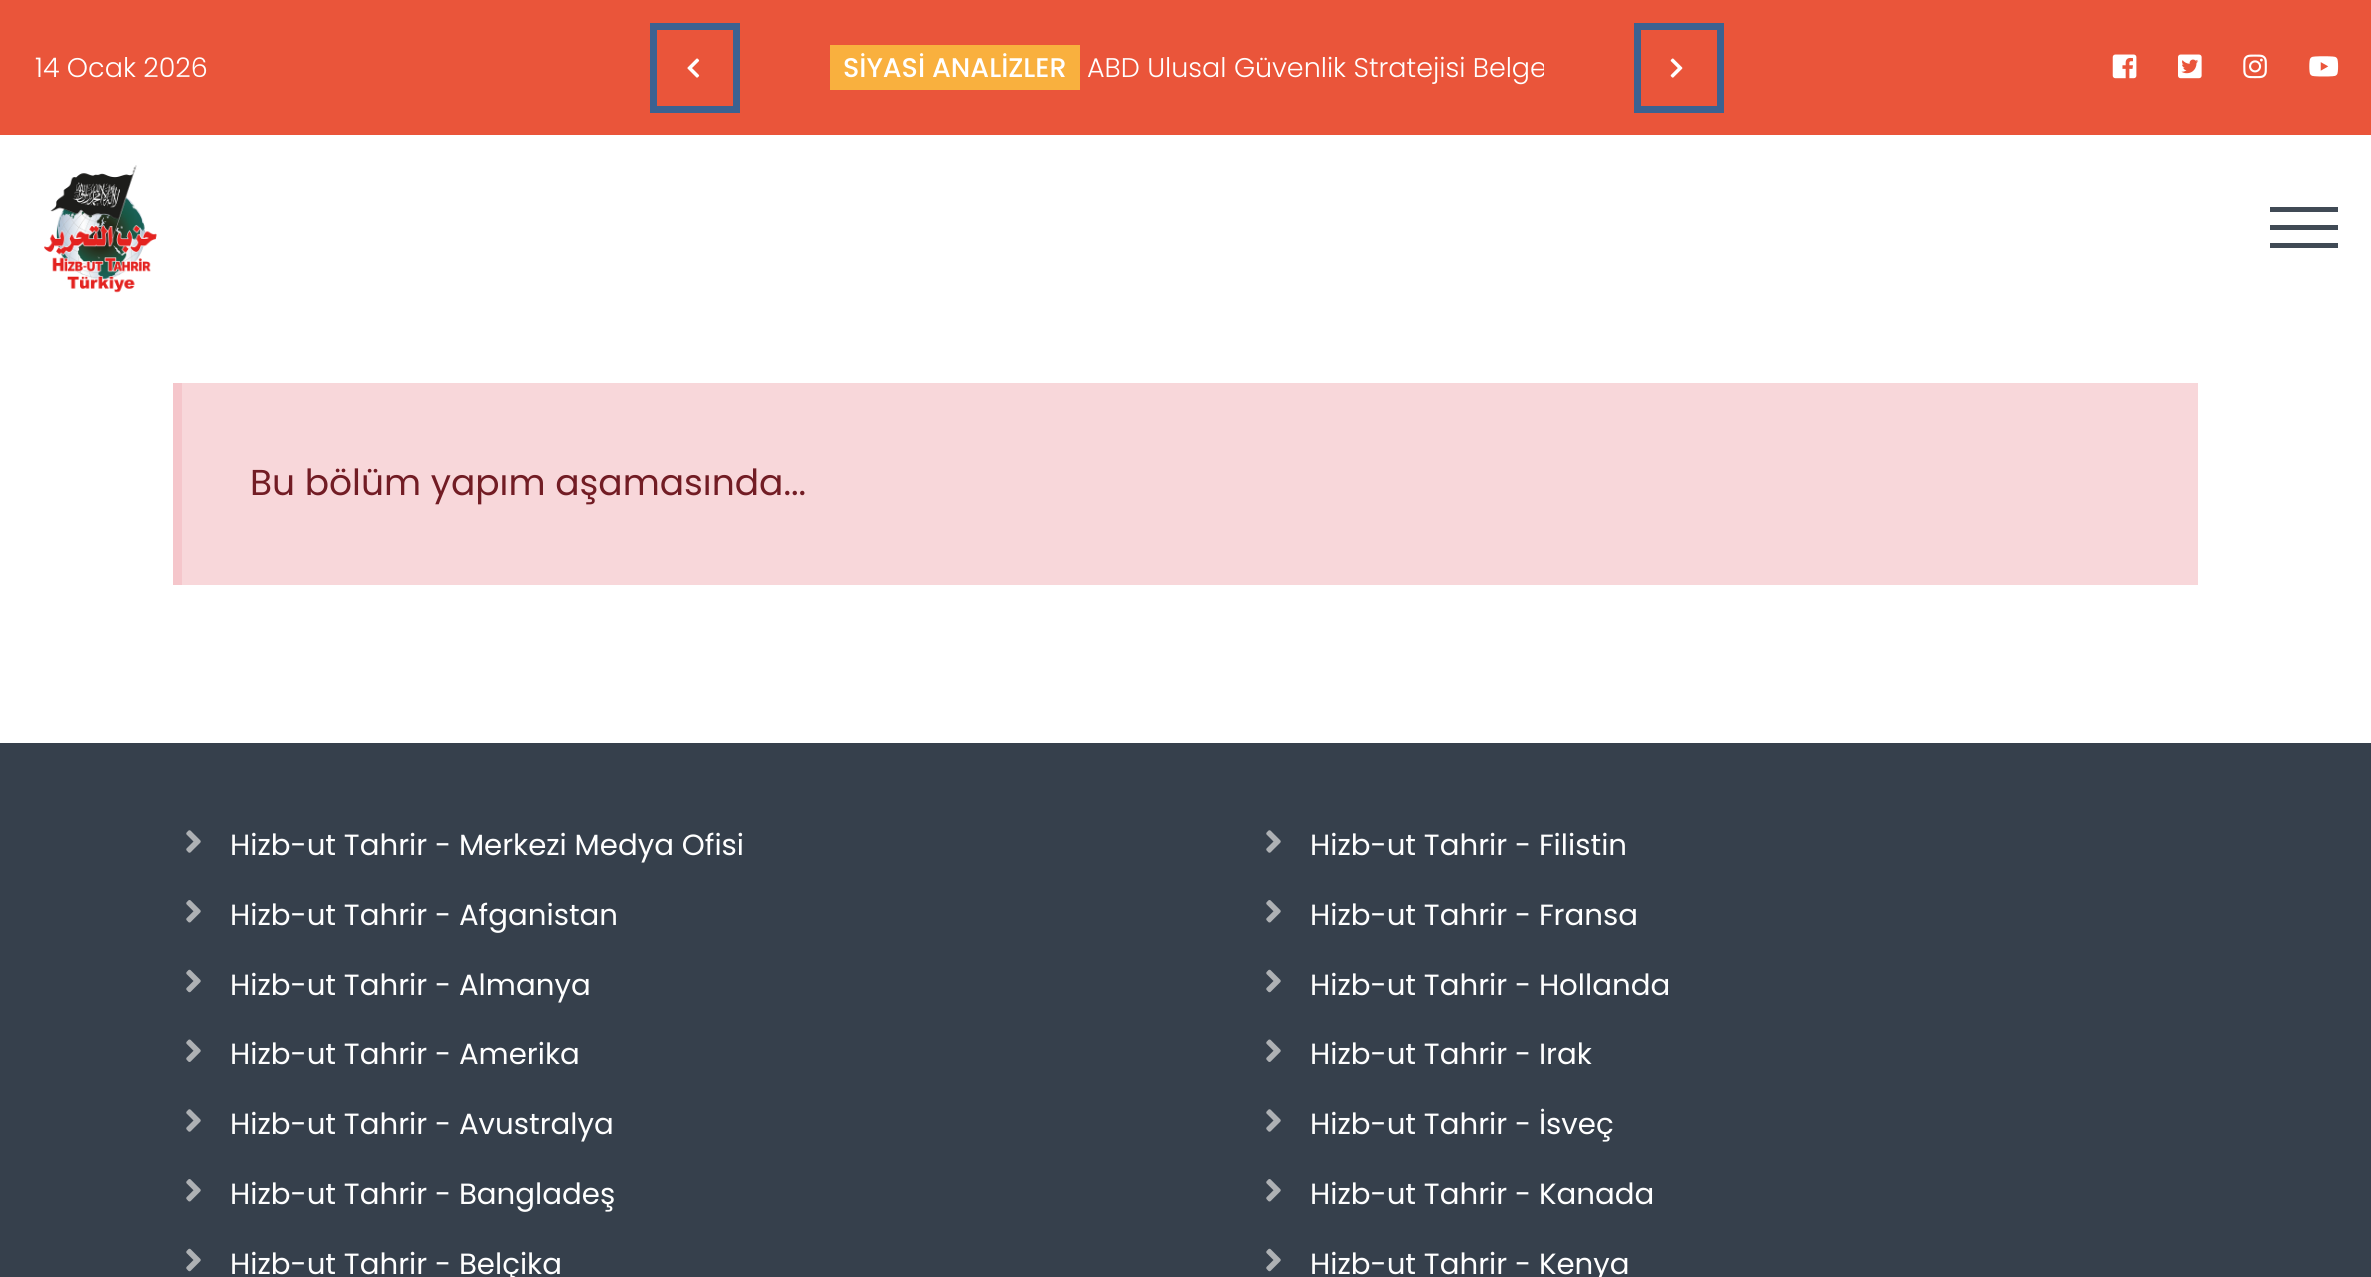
import math
import cairo

surface = cairo.ImageSurface(cairo.FORMAT_RGB24, 2371, 1277)
c = cairo.Context(surface)
options = cairo.FontOptions()
options.set_hint_metrics(cairo.HINT_METRICS_OFF)
options.set_hint_style(cairo.HINT_STYLE_NONE)
c.set_font_options(options)
c.set_miter_limit(4)
def C(code):
 c.set_source_rgb(*(v / 255 for v in bytes.fromhex(code[-6:])))
def F(family, size, italic, bold):
 c.select_font_face(family, cairo.FONT_SLANT_ITALIC if italic else cairo.FONT_SLANT_NORMAL, cairo.FONT_WEIGHT_BOLD if bold else cairo.FONT_WEIGHT_NORMAL)
 c.set_font_size(size)
def T(x, y, s):
 c.move_to(x, y)
 c.show_text(s)
def R(x, y, w, h):
 c.rectangle(x, y, w, h)
 c.fill()
def I(path, x, y, w, h):
 c.save()
 c.set_source_surface(cairo.ImageSurface.create_from_png(path), x, y)
 c.rectangle(x, y, w, h)
 c.fill()
 c.restore()
C('ffffff')
c.paint()
C('ea553a')
R(0,0,2371,135)
F('Poppins Light',27,0,0)
C('ffffff')
T(35,77,'14 Ocak 2026')
c.rectangle(653.5,26.5,83,83)
C('3b6291')
c.set_line_width(7)
c.stroke()
I('1.png',687,58,13,20)
c.rectangle(1637.5,26.5,83,83)
c.stroke()
I('2.png',1670,58,13,20)
C('f9b03e')
R(830,45,250,45)
F('Poppins Medium',27,0,0)
C('ffffff')
T(843,77,'SİYASİ ANALİZLER')
c.save()
c.rectangle(830,41,714,54)
c.clip()
F('Poppins Light',27,0,0)
T(1087,77,'ABD Ulusal Güvenlik Stratejisi Belge')
c.restore()
I('3.png',2112,54,25,25)
I('4.png',2178,54,24,25)
I('5.png',2243,54,24,25)
I('6.png',2309,56,30,21)
I('7.png',44,165,113,128)
C('404a55')
R(2270,207,68,5)
R(2270,243,68,5)
R(2270,225,68,5)
C('f8d7da')
R(182,383,2016,202)
C('f5c6cb')
R(173,383,9,202)
F('Poppins',36,0,0)
C('721c24')
T(250,495,'Bu bölüm yapım aşamasında...')
C('36404c')
R(0,743,2371,534)
I('8.png',186,830,15,23)
F('Poppins',29.25,0,0)
C('ffffff')
T(230,855,'Hizb-ut Tahrir - Merkezi Medya Ofisi')
I('9.png',186,900,15,23)
T(230,925,'Hizb-ut Tahrir - Afganistan')
I('10.png',186,969,15,24)
T(230,995,'Hizb-ut Tahrir - Almanya')
I('11.png',186,1039,15,23)
T(230,1064,'Hizb-ut Tahrir - Amerika')
I('8.png',186,1109,15,23)
T(230,1134,'Hizb-ut Tahrir - Avustralya')
I('9.png',186,1179,15,23)
T(230,1204,'Hizb-ut Tahrir - Bangladeş')
I('10.png',186,1248,15,24)
T(230,1274,'Hizb-ut Tahrir - Belçika')
I('8.png',1266,830,15,23)
T(1310,855,'Hizb-ut Tahrir - Filistin')
I('9.png',1266,900,15,23)
T(1310,925,'Hizb-ut Tahrir - Fransa')
I('10.png',1266,969,15,24)
T(1310,995,'Hizb-ut Tahrir - Hollanda')
I('11.png',1266,1039,15,23)
T(1310,1064,'Hizb-ut Tahrir - Irak')
I('8.png',1266,1109,15,23)
T(1310,1134,'Hizb-ut Tahrir - İsveç')
I('9.png',1266,1179,15,23)
T(1310,1204,'Hizb-ut Tahrir - Kanada')
I('10.png',1266,1248,15,24)
T(1310,1274,'Hizb-ut Tahrir - Kenya')
surface.write_to_png('o.png')
